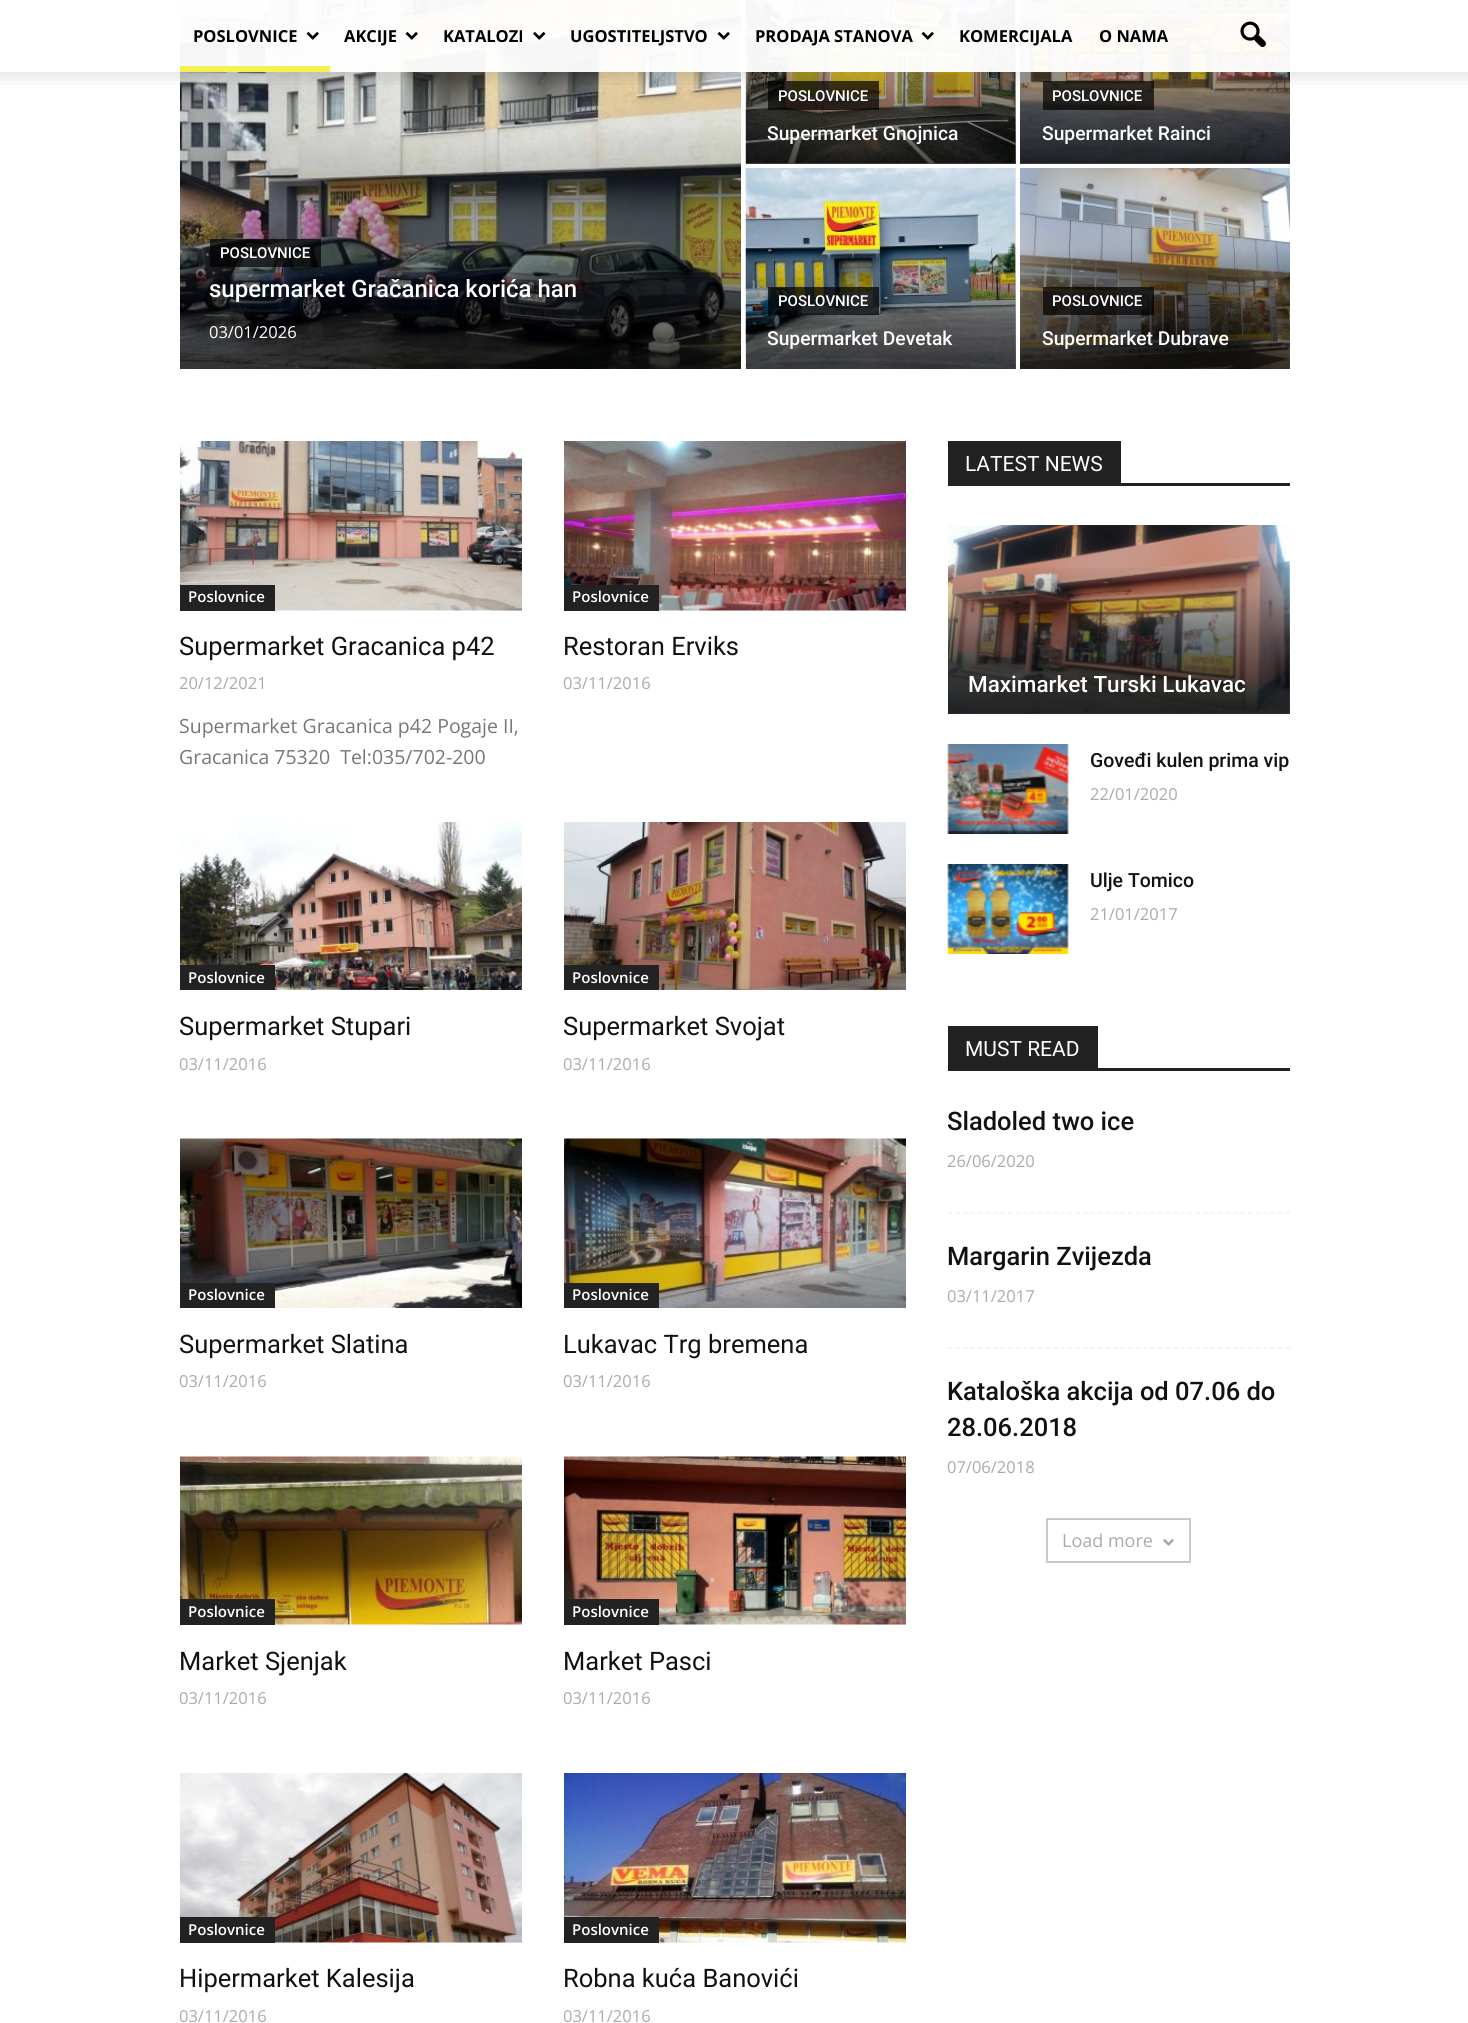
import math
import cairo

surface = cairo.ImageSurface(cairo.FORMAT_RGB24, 1468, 2023)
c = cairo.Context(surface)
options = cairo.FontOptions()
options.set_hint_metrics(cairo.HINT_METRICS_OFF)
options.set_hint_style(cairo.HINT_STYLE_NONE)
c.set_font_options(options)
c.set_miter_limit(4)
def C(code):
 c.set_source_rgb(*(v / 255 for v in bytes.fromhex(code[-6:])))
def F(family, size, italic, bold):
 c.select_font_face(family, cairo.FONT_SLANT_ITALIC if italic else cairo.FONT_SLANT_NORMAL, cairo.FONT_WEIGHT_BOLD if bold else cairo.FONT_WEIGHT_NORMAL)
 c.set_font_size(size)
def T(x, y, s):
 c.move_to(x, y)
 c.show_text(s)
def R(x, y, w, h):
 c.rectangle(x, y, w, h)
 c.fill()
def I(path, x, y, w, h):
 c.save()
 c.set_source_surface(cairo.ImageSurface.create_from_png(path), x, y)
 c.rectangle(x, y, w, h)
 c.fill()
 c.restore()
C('ffffff')
c.paint()
I('8.png',180,0,561,369)
C('e5e5e5')
R(746,0,270,164)
I('9.png',745,0,271,164)
gradient = cairo.LinearGradient(881,-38,881,164)
gradient.add_color_stop_rgba(.4,0,0,0,0)
gradient.add_color_stop_rgba(1,0,0,0,.7)
c.set_source(gradient)
R(746,47,270,117)
C('e5e5e5')
R(1020,163,270,1)
I('10.png',1020,0,270,164)
gradient = cairo.LinearGradient(1155,-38,1155,164)
gradient.add_color_stop_rgba(.4,0,0,0,0)
gradient.add_color_stop_rgba(1,0,0,0,.7)
c.set_source(gradient)
R(1020,47,270,117)
c.set_source_rgba(1,1,1,0.95)
R(180,0,1110,72)
F('Open Sans',16.5,0,1)
C('000000')
T(193,42,'POSLOVNICE')
I('1.png',306,32,13,8)
C('f4f250')
R(180,66,150,6)
C('000000')
T(344,42,'AKCIJE')
I('2.png',405,32,13,8)
T(443,42,'KATALOZI')
I('3.png',533,32,13,8)
T(570,42,'UGOSTITELJSTVO')
I('4.png',717,32,13,8)
T(755,42,'PRODAJA STANOVA')
I('5.png',921,32,13,8)
T(959,42,'KOMERCIJALA')
T(1099,42,'O NAMA')
I('6.png',1240,21,26,26)
c.set_source_rgba(0,0,0,0.7)
R(768,81,111,29)
R(1043,81,111,29)
I('7.png',0,72,1468,13)
R(210,239,111,28)
F('Roboto Medium',15,0,0)
C('ffffff')
T(220,258,'POSLOVNICE')
F('Roboto Medium',24,0,0)
T(209,297,'supermarket Gračanica korića han')
F('Open Sans',16.5,0,0)
T(209,338,'03/01/2026')
F('Roboto Medium',15,0,0)
T(778,101,'POSLOVNICE')
F('Roboto Medium',19.25,0,0)
T(767,140,'Supermarket Gnojnica')
F('Roboto Medium',15,0,0)
T(1052,101,'POSLOVNICE')
F('Roboto Medium',19.25,0,0)
T(1042,140,'Supermarket Rainci')
C('e5e5e5')
R(1015,168,1,201)
I('11.png',745,168,271,201)
gradient = cairo.LinearGradient(881,168,881,369)
gradient.add_color_stop_rgba(.4,0,0,0,0)
gradient.add_color_stop_rgba(1,0,0,0,.7)
c.set_source(gradient)
R(746,252,270,117)
c.set_source_rgba(0,0,0,0.7)
R(768,287,111,28)
F('Roboto Medium',15,0,0)
C('ffffff')
T(778,306,'POSLOVNICE')
F('Roboto Medium',19.25,0,0)
T(767,345,'Supermarket Devetak')
I('12.png',1020,168,270,201)
c.set_source_rgba(0,0,0,0.7)
R(1043,287,111,28)
F('Roboto Medium',15,0,0)
C('ffffff')
T(1052,306,'POSLOVNICE')
F('Roboto Medium',19.25,0,0)
T(1042,345,'Supermarket Dubrave')
I('13.png',180,441,342,170)
C('222222')
R(180,585,95,26)
F('Open Sans SemiBold',15,0,0)
C('ffffff')
T(188,602,'Poslovnice')
F('Roboto',25.5,0,0)
C('111111')
T(179,655,'Supermarket Gracanica p42')
F('Open Sans',16.5,0,0)
C('aaaaaa')
T(179,689,'20/12/2021')
F('Open Sans',19.5,0,0)
C('777777')
T(179,733,'Supermarket Gracanica p42 Pogaje II,')
T(179,764,'Gracanica 75320  Tel:035/702-200')
I('14.png',564,441,342,170)
C('222222')
R(564,585,95,26)
F('Open Sans SemiBold',15,0,0)
C('ffffff')
T(572,602,'Poslovnice')
F('Roboto',25.5,0,0)
C('111111')
T(563,655,'Restoran Erviks')
F('Open Sans',16.5,0,0)
C('aaaaaa')
T(563,689,'03/11/2016')
I('15.png',180,822,342,168)
C('222222')
R(180,965,95,25)
F('Open Sans SemiBold',15,0,0)
C('ffffff')
T(188,983,'Poslovnice')
F('Roboto',25.5,0,0)
C('111111')
T(179,1035,'Supermarket Stupari')
F('Open Sans',16.5,0,0)
C('aaaaaa')
T(179,1070,'03/11/2016')
I('16.png',564,822,342,168)
C('222222')
R(564,965,95,25)
F('Open Sans SemiBold',15,0,0)
C('ffffff')
T(572,983,'Poslovnice')
F('Roboto',25.5,0,0)
C('111111')
T(563,1035,'Supermarket Svojat')
F('Open Sans',16.5,0,0)
C('aaaaaa')
T(563,1070,'03/11/2016')
I('17.png',180,1138,342,170)
C('222222')
R(180,1283,95,25)
F('Open Sans SemiBold',15,0,0)
C('ffffff')
T(188,1300,'Poslovnice')
F('Roboto',25.5,0,0)
C('111111')
T(179,1353,'Supermarket Slatina')
F('Open Sans',16.5,0,0)
C('aaaaaa')
T(179,1387,'03/11/2016')
I('18.png',564,1138,342,170)
C('222222')
R(564,1283,95,25)
F('Open Sans SemiBold',15,0,0)
C('ffffff')
T(572,1300,'Poslovnice')
F('Roboto',25.5,0,0)
C('111111')
T(563,1353,'Lukavac Trg bremena')
F('Open Sans',16.5,0,0)
C('aaaaaa')
T(563,1387,'03/11/2016')
I('19.png',180,1456,342,169)
C('222222')
R(180,1599,95,26)
F('Open Sans SemiBold',15,0,0)
C('ffffff')
T(188,1617,'Poslovnice')
F('Roboto',25.5,0,0)
C('111111')
T(179,1670,'Market Sjenjak')
F('Open Sans',16.5,0,0)
C('aaaaaa')
T(179,1704,'03/11/2016')
I('20.png',564,1456,342,169)
C('222222')
R(564,1599,95,26)
F('Open Sans SemiBold',15,0,0)
C('ffffff')
T(572,1617,'Poslovnice')
F('Roboto',25.5,0,0)
C('111111')
T(563,1670,'Market Pasci')
F('Open Sans',16.5,0,0)
C('aaaaaa')
T(563,1704,'03/11/2016')
I('21.png',180,1773,342,170)
C('222222')
R(180,1917,95,26)
F('Open Sans SemiBold',15,0,0)
C('ffffff')
T(188,1935,'Poslovnice')
F('Roboto',25.5,0,0)
C('111111')
T(179,1987,'Hipermarket Kalesija')
F('Open Sans',16.5,0,0)
C('aaaaaa')
T(179,2022,'03/11/2016')
I('22.png',564,1773,342,170)
C('222222')
R(564,1917,95,26)
F('Open Sans SemiBold',15,0,0)
C('ffffff')
T(572,1935,'Poslovnice')
F('Roboto',25.5,0,0)
C('111111')
T(563,1987,'Robna kuća Banovići')
F('Open Sans',16.5,0,0)
C('aaaaaa')
T(563,2022,'03/11/2016')
C('222222')
R(948,483,342,3)
R(948,441,173,42)
F('Roboto',21,0,0)
C('ffffff')
T(965,471,'LATEST NEWS')
I('23.png',948,525,342,189)
gradient = cairo.LinearGradient(1119,563,1119,714)
gradient.add_color_stop_rgba(0,0,0,0,0)
gradient.add_color_stop_rgba(1,0,0,0,.7)
c.set_source(gradient)
R(948,568,342,146)
F('Roboto Medium',22.5,0,0)
C('ffffff')
T(968,692,'Maximarket Turski Lukavac')
I('24.png',947,744,122,90)
F('Roboto Medium',19.5,0,0)
C('111111')
T(1090,767,'Goveđi kulen prima vip')
F('Open Sans',16.5,0,0)
C('aaaaaa')
T(1090,800,'22/01/2020')
I('25.png',947,864,122,90)
F('Roboto Medium',19.5,0,0)
C('111111')
T(1090,887,'Ulje Tomico')
F('Open Sans',16.5,0,0)
C('aaaaaa')
T(1090,920,'21/01/2017')
C('222222')
R(948,1068,342,3)
R(948,1026,150,42)
F('Roboto',21,0,0)
C('ffffff')
T(965,1056,'MUST READ')
c.new_path()
c.move_to(948,1213)
c.line_to(1290,1213)
C('f2f2f2')
c.set_line_width(1.5)
c.set_dash([4.5,3])
c.stroke()
F('Roboto Medium',25.5,0,0)
C('111111')
T(947,1130,'Sladoled two ice')
F('Open Sans',16.5,0,0)
C('aaaaaa')
T(947,1167,'26/06/2020')
c.new_path()
c.move_to(948,1348)
c.line_to(1290,1348)
C('f2f2f2')
c.stroke()
F('Roboto Medium',25.5,0,0)
C('111111')
T(947,1265,'Margarin Zvijezda')
F('Open Sans',16.5,0,0)
C('aaaaaa')
T(947,1302,'03/11/2017')
F('Roboto Medium',25.5,0,0)
C('111111')
T(947,1400,'Kataloška akcija od 07.06 do')
T(947,1436,'28.06.2018')
F('Open Sans',16.5,0,0)
C('aaaaaa')
T(947,1473,'07/06/2018')
c.rectangle(1047,1519,143,43)
C('c9c9c9')
c.set_line_width(2)
c.set_dash([])
c.stroke()
F('Open Sans',18,0,0)
C('aaaaaa')
T(1062,1547,'Load more')
I('26.png',1163,1539,11,7)
surface.write_to_png('o.png')
